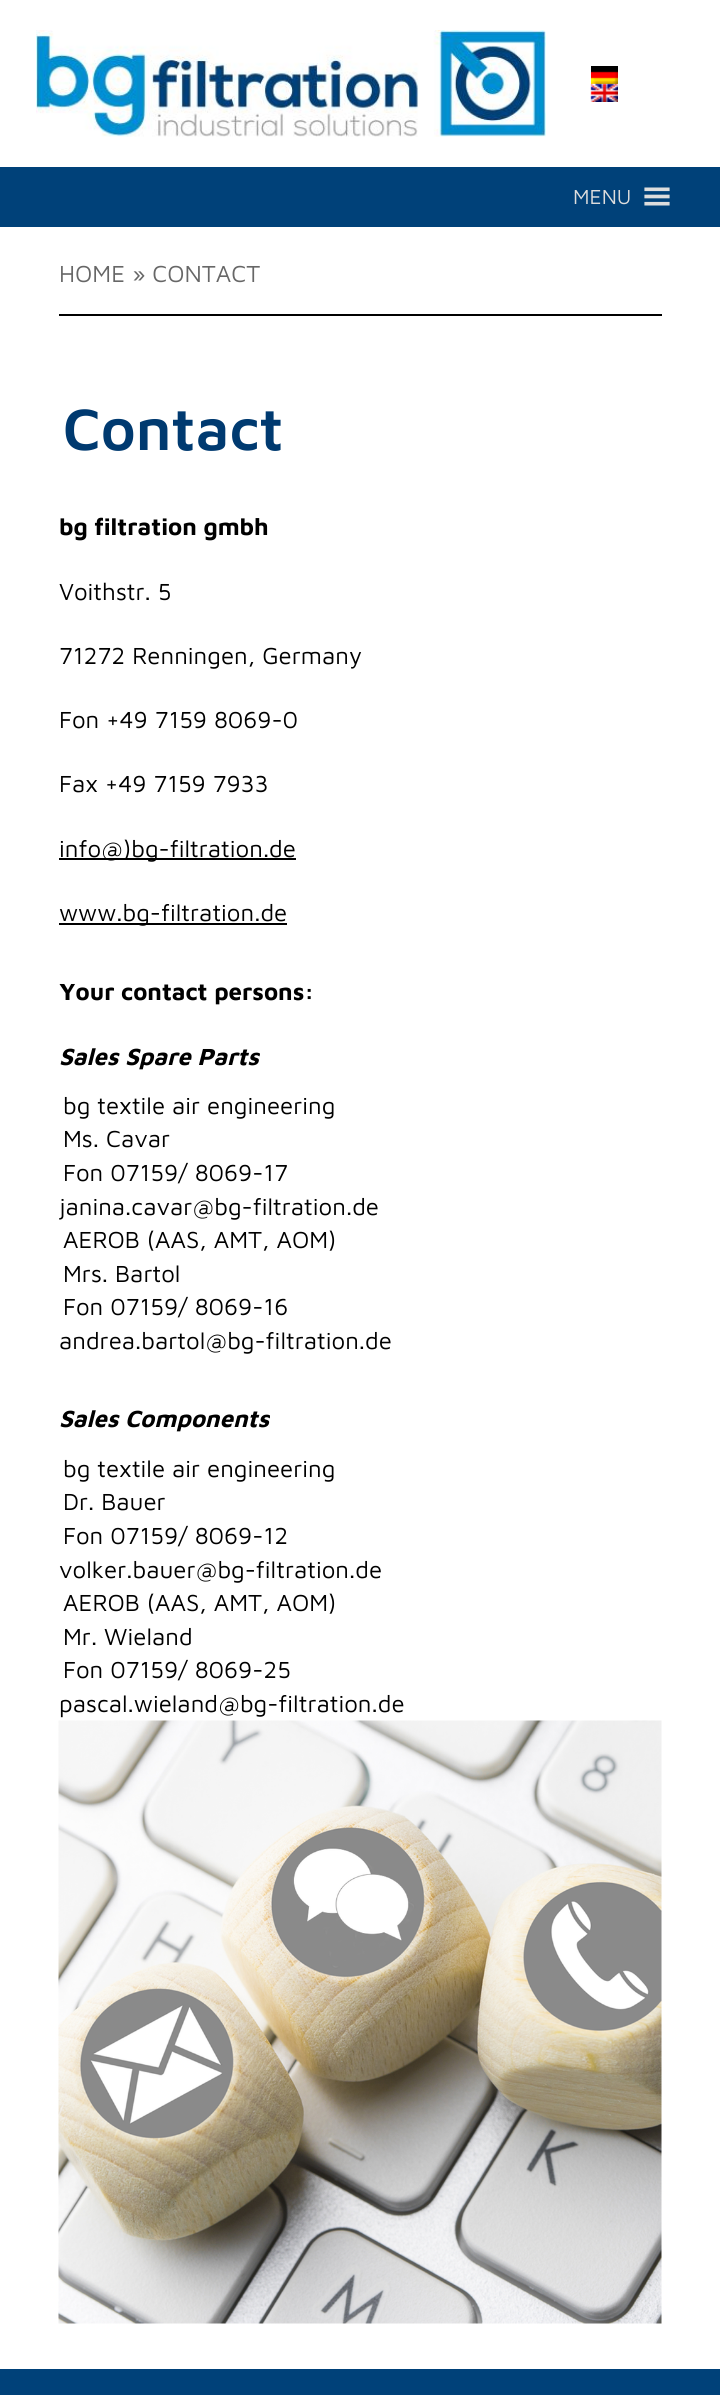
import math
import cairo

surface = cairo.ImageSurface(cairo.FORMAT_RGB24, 720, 2395)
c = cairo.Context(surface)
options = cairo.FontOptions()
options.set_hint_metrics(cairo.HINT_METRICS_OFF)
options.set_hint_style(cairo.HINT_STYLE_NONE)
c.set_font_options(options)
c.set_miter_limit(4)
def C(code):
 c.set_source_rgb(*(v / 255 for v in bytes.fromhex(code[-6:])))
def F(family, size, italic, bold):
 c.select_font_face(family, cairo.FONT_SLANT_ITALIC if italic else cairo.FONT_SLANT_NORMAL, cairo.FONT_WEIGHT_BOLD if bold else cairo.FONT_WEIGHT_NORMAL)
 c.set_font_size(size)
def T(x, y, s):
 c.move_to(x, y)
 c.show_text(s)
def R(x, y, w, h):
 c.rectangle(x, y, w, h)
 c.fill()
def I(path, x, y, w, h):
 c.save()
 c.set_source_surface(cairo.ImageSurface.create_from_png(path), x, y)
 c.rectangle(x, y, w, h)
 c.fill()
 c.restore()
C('ffffff')
c.paint()
I('1.png',36,30,510,107)
I('2.png',591,66,27,18)
I('3.png',590,83,28,19)
C('004179')
R(0,167,720,60)
F('Maven Pro',21,0,0)
C('dddddd')
T(573,204,'MENU')
I('4.png',644,187,26,19)
F('Maven Pro',24,0,0)
C('676767')
T(59,282,'HOME » CONTACT')
C('000000')
R(59,314,603,2)
F('Maven Pro SemiBold',60,0,0)
C('003a70')
T(63,450,'Contact')
F('Maven Pro',24,0,1)
C('000000')
T(59,535,'bg filtration gmbh')
F('Maven Pro',24,0,0)
T(59,600,'Voithstr. 5')
T(59,664,'71272 Renningen, Germany')
T(59,728,'Fon +49 7159 8069-0')
T(59,792,'Fax +49 7159 7933')
R(59,858,237,2)
T(59,857,'info@)bg-filtration.de')
R(59,923,228,2)
T(59,921,'www.bg-filtration.de')
F('Maven Pro',24,0,1)
T(59,1000,'Your contact persons:')
F('Maven Pro',24,1,1)
T(59,1065,'Sales Spare Parts')
F('Maven Pro',24,0,0)
T(63,1114,'bg textile air engineering')
T(63,1147,'Ms. Cavar')
T(63,1181,'Fon 07159/ 8069-17')
T(59,1215,'janina.cavar@bg-filtration.de')
T(63,1248,'AEROB (AAS, AMT, AOM)')
T(63,1282,'Mrs. Bartol')
T(63,1315,'Fon 07159/ 8069-16')
T(59,1349,'andrea.bartol@bg-filtration.de')
F('Maven Pro',24,1,1)
T(59,1427,'Sales Components')
F('Maven Pro',24,0,0)
T(63,1477,'bg textile air engineering')
T(63,1510,'Dr. Bauer')
T(63,1544,'Fon 07159/ 8069-12')
T(59,1578,'volker.bauer@bg-filtration.de')
T(63,1611,'AEROB (AAS, AMT, AOM)')
T(63,1645,'Mr. Wieland')
T(63,1678,'Fon 07159/ 8069-25')
T(59,1712,'pascal.wieland@bg-filtration.de')
I('5.png',58,1720,604,604)
C('004179')
R(0,2369,720,26)
surface.write_to_png('o.png')
